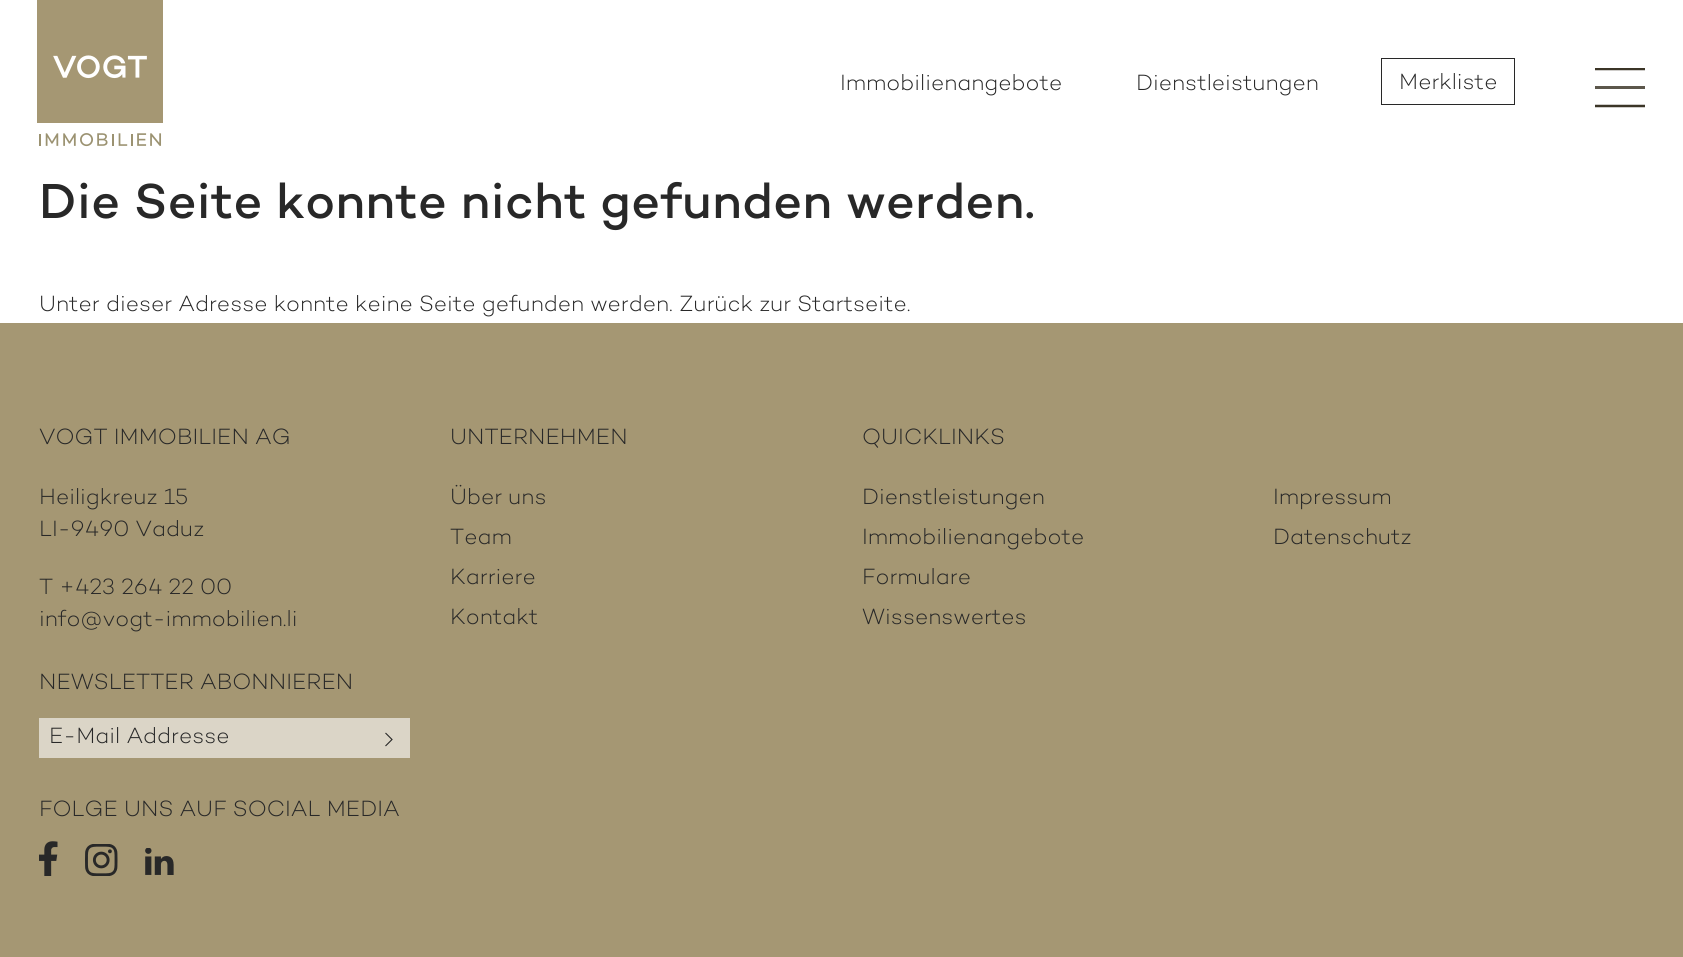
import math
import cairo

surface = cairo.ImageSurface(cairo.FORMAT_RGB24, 1683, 957)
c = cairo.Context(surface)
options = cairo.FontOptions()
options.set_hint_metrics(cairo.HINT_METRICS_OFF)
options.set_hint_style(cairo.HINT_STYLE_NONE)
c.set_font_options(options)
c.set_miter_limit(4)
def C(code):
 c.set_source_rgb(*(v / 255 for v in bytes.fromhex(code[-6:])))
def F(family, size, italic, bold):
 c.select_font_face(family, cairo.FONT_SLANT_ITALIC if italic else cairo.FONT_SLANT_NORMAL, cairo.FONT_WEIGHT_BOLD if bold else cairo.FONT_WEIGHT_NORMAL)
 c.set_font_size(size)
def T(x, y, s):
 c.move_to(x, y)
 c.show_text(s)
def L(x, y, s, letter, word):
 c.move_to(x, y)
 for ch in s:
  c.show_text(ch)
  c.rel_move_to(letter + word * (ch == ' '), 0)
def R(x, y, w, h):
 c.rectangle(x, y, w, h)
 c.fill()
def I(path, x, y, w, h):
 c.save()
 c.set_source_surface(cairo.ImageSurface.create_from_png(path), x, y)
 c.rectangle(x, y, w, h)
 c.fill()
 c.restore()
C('ffffff')
c.paint()
I('1.png',37,0,126,147)
F('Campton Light',22.5,0,0)
C('282828')
T(840,90,'Immobilienangebote')
T(1136,90,'Dienstleistungen')
c.rectangle(1381.5,58.5,133,46)
c.set_line_width(1)
c.stroke()
T(1399,89,'Merkliste')
c.save()
c.rectangle(1595,68,50,40)
c.clip()
c.new_path()
c.move_to(1595,69)
c.line_to(1645,69)
C('3b3527')
c.set_line_width(2.5)
c.stroke()
c.restore()
C('5c574b')
R(1595,86,50,3)
c.new_path()
c.move_to(1595,106)
c.line_to(1645,106)
C('3b3527')
c.set_line_width(2.5)
c.stroke()
F('Campton Medium',50,0,0)
C('282828')
L(39,218,'Die Seite konnte nicht gefunden werden.',.4,0)
F('Campton Light',22.5,0,0)
T(39,311,'Unter dieser Adresse konnte keine Seite gefunden werden. Zurück zur Startseite.')
C('a59773')
R(0,323,1683,634)
C('282828')
T(39,444,'VOGT IMMOBILIEN AG')
T(39,504,'Heiligkreuz 15')
T(39,536,'LI-9490 Vaduz')
T(39,594,'T +423 264 22 00')
T(39,626,'info@vogt-immobilien.li')
T(450,444,'UNTERNEHMEN')
T(450,504,'Über uns')
T(450,544,'Team')
T(450,584,'Karriere')
T(450,624,'Kontakt')
T(862,444,'QUICKLINKS')
T(862,504,'Dienstleistungen')
T(862,544,'Immobilienangebote')
T(862,584,'Formulare')
T(862,624,'Wissenswertes')
T(1273,504,'Impressum')
T(1273,544,'Datenschutz')
T(39,689,'NEWSLETTER ABONNIEREN')
C('dbd5c7')
R(39,718,371,40)
C('282828')
T(49,743,'E-Mail Addresse')
c.new_path()
c.move_to(385.5,733)
c.line_to(392,739.5)
c.line_to(385.5,746)
c.set_line_width(1.1)
c.stroke()
T(39,816,'FOLGE UNS AUF SOCIAL MEDIA')
I('2.png',39,841,19,35)
I('3.png',85,844,33,32)
I('4.png',145,848,29,27)
surface.write_to_png('o.png')
